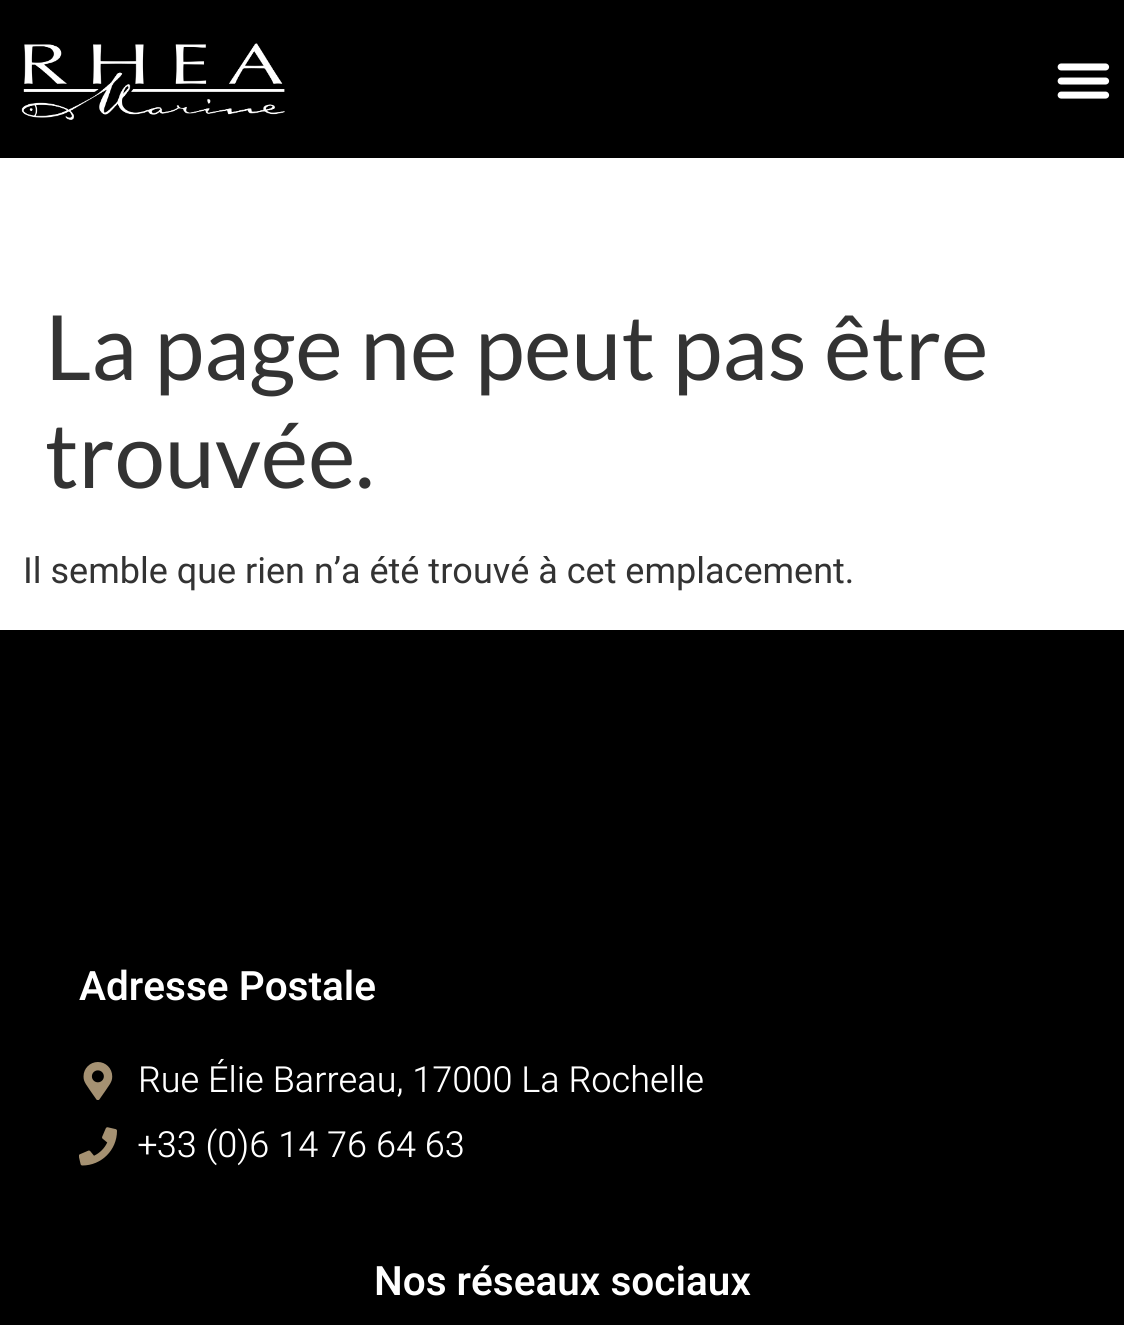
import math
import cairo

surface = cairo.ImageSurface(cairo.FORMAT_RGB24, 1124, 1325)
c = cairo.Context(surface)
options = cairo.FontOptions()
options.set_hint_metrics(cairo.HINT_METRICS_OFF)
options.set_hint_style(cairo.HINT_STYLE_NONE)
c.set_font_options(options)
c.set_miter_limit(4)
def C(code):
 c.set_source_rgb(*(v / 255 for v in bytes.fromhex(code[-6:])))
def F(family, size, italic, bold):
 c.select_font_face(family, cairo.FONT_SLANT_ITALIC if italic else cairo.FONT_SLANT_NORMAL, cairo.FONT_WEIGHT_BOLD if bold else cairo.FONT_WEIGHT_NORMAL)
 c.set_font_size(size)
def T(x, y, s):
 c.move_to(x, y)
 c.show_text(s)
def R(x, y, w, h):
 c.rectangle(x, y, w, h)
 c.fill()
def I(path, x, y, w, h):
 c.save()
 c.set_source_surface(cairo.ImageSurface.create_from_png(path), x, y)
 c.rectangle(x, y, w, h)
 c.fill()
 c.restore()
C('ffffff')
c.paint()
C('000000')
R(0,0,1124,158)
I('1.png',21,43,264,77)
I('2.png',1057,63,53,36)
F('Lato',90,0,0)
C('333333')
T(45,380,'La page ne peut pas être')
T(45,488,'trouvée.')
F('Roboto',36,0,0)
T(23,583,'Il semble que rien n’a été trouvé à cet emplacement.')
C('000000')
R(0,630,1124,695)
F('Heebo SemiBold',40.5,0,0)
C('ffffff')
T(79,1000,'Adresse Postale')
I('3.png',83,1062,30,38)
F('Heebo Light',36,0,0)
T(138,1092,'Rue Élie Barreau, 17000 La Rochelle')
I('4.png',79,1127,38,39)
T(138,1157,'+33 (0)6 14 76 64 63')
F('Heebo SemiBold',40.5,0,0)
T(374,1295,'Nos réseaux sociaux')
surface.write_to_png('o.png')
